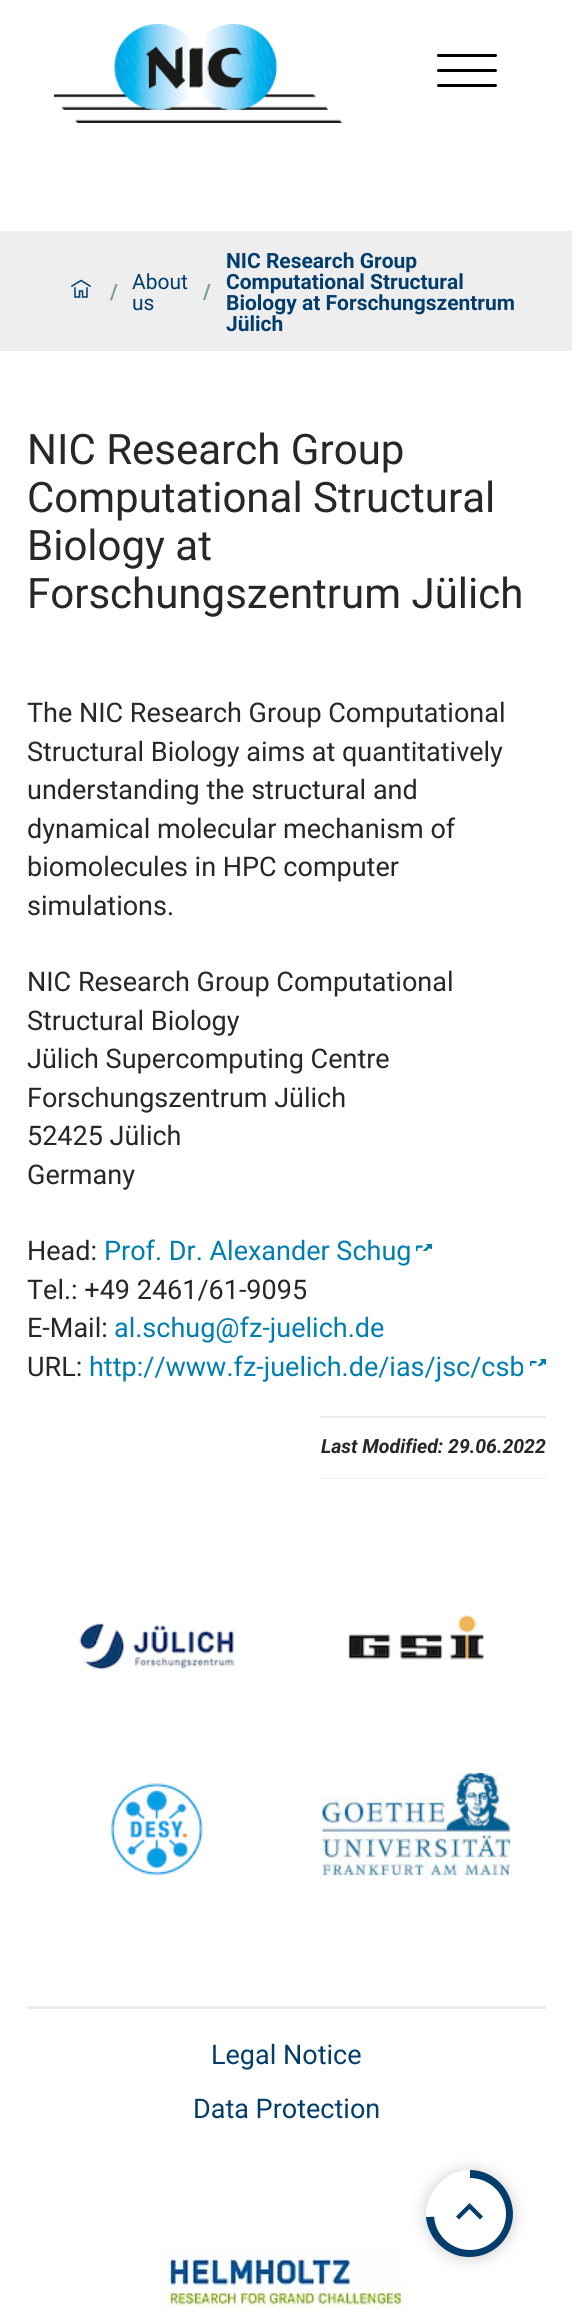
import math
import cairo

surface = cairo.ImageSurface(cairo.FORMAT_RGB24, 572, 2317)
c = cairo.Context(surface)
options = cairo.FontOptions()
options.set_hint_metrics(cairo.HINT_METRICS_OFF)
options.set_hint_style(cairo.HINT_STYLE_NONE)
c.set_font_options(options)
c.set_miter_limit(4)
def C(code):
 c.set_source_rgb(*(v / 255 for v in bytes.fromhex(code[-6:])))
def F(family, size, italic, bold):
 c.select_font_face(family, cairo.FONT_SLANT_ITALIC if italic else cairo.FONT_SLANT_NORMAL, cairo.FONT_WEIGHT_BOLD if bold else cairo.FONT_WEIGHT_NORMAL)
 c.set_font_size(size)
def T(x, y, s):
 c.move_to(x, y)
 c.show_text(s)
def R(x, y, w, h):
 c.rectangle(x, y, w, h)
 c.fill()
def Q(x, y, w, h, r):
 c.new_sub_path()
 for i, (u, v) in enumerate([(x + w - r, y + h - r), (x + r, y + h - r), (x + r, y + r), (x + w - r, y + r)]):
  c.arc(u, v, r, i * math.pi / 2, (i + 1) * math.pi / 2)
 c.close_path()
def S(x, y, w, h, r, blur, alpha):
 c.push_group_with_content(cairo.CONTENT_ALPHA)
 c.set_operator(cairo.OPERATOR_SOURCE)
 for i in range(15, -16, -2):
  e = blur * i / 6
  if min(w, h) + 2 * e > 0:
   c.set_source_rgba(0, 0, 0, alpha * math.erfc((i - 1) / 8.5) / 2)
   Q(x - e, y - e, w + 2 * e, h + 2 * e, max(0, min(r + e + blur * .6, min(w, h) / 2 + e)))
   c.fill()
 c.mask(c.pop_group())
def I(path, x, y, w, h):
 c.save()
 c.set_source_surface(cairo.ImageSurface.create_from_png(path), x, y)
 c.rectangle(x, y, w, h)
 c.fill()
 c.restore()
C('ffffff')
c.paint()
I('1.png',54,24,288,99)
C('000000')
Q(437,84,60,3,1.5)
c.fill()
Q(437,54,60,3,1.5)
c.fill()
Q(437,69,60,3,1.5)
c.fill()
C('eeeeee')
R(0,231,572,120)
I('2.png',71,279,20,19)
F('Roboto',21,0,1)
C('809b9a')
T(110,299,'/')
F('Roboto',21,0,0)
C('023d6b')
T(132,289,'About')
T(132,310,'us')
F('Roboto',21,0,1)
C('809b9a')
T(203,299,'/')
C('023d6b')
T(226,268,'NIC Research Group')
T(226,289,'Computational Structural')
T(226,310,'Biology at Forschungszentrum')
T(226,331,'Jülich')
F('Roboto',42,0,0)
C('272727')
T(27,464,'NIC Research Group')
T(27,512,'Computational Structural')
T(27,560,'Biology at')
T(27,608,'Forschungszentrum Jülich')
F('Roboto',27,0,0)
T(27,722,'The NIC Research Group Computational')
T(27,761,'Structural Biology aims at quantitatively')
T(27,799,'understanding the structural and')
T(27,838,'dynamical molecular mechanism of')
T(27,876,'biomolecules in HPC computer')
T(27,915,'simulations.')
T(27,991,'NIC Research Group Computational')
T(27,1030,'Structural Biology')
T(27,1068,'Jülich Supercomputing Centre')
T(27,1107,'Forschungszentrum Jülich')
T(27,1145,'52425 Jülich')
T(27,1184,'Germany')
T(27,1260,'Head:')
C('007eb1')
T(104,1260,'Prof. Dr. Alexander Schug')
I('3.png',416,1244,16,7)
C('272727')
T(27,1299,'Tel.: +49 2461/61-9095')
T(27,1337,'E-Mail:')
C('007eb1')
T(114,1337,'al.schug@fz-juelich.de')
C('272727')
T(27,1376,'URL:')
C('007eb1')
T(89,1376,'http://www.fz-juelich.de/ias/jsc/csb')
I('4.png',530,1359,16,7)
C('eeeeee')
R(321,1416,225,2)
R(321,1478,225,1)
F('Roboto',19.5,1,1)
C('272727')
T(321,1453,'Last Modified: 29.06.2022')
I('5.png',79,1622,156,48)
I('6.png',348,1615,137,45)
I('7.png',110,1781,93,95)
I('8.png',322,1773,188,102)
C('ececed')
R(27,2006,519,3)
F('Roboto',27,0,0)
C('023d6b')
T(211,2064,'Legal Notice')
T(193,2118,'Data Protection')
I('9.png',160,2249,246,60)
C('000000')
S(426,2171,87,87,43.5,7.5,.2)
C('023d6b')
c.new_path()
c.move_to(470,2214)
c.line_to(470,2170)
c.curve_to(493,2170,512,2189,513,2213)
c.curve_to(513,2237,495,2256,471,2257)
c.curve_to(448,2258,428,2240,426,2217)
c.close_path()
c.fill()
C('ffffff')
c.new_path()
c.move_to(470,2214)
c.line_to(426,2217)
c.curve_to(425,2192,445,2170,470,2170)
c.close_path()
c.fill()
c.arc(470,2214,36,0,2 * math.pi)
c.fill()
C('023d6b')
c.set_fill_rule(cairo.FILL_RULE_EVEN_ODD)
c.new_path()
c.move_to(483,2216.5)
c.line_to(480,2219.5)
c.line_to(469.5,2209)
c.line_to(459,2219.5)
c.line_to(456,2216.5)
c.line_to(469.5,2203)
c.close_path()
c.fill()
surface.write_to_png('o.png')
